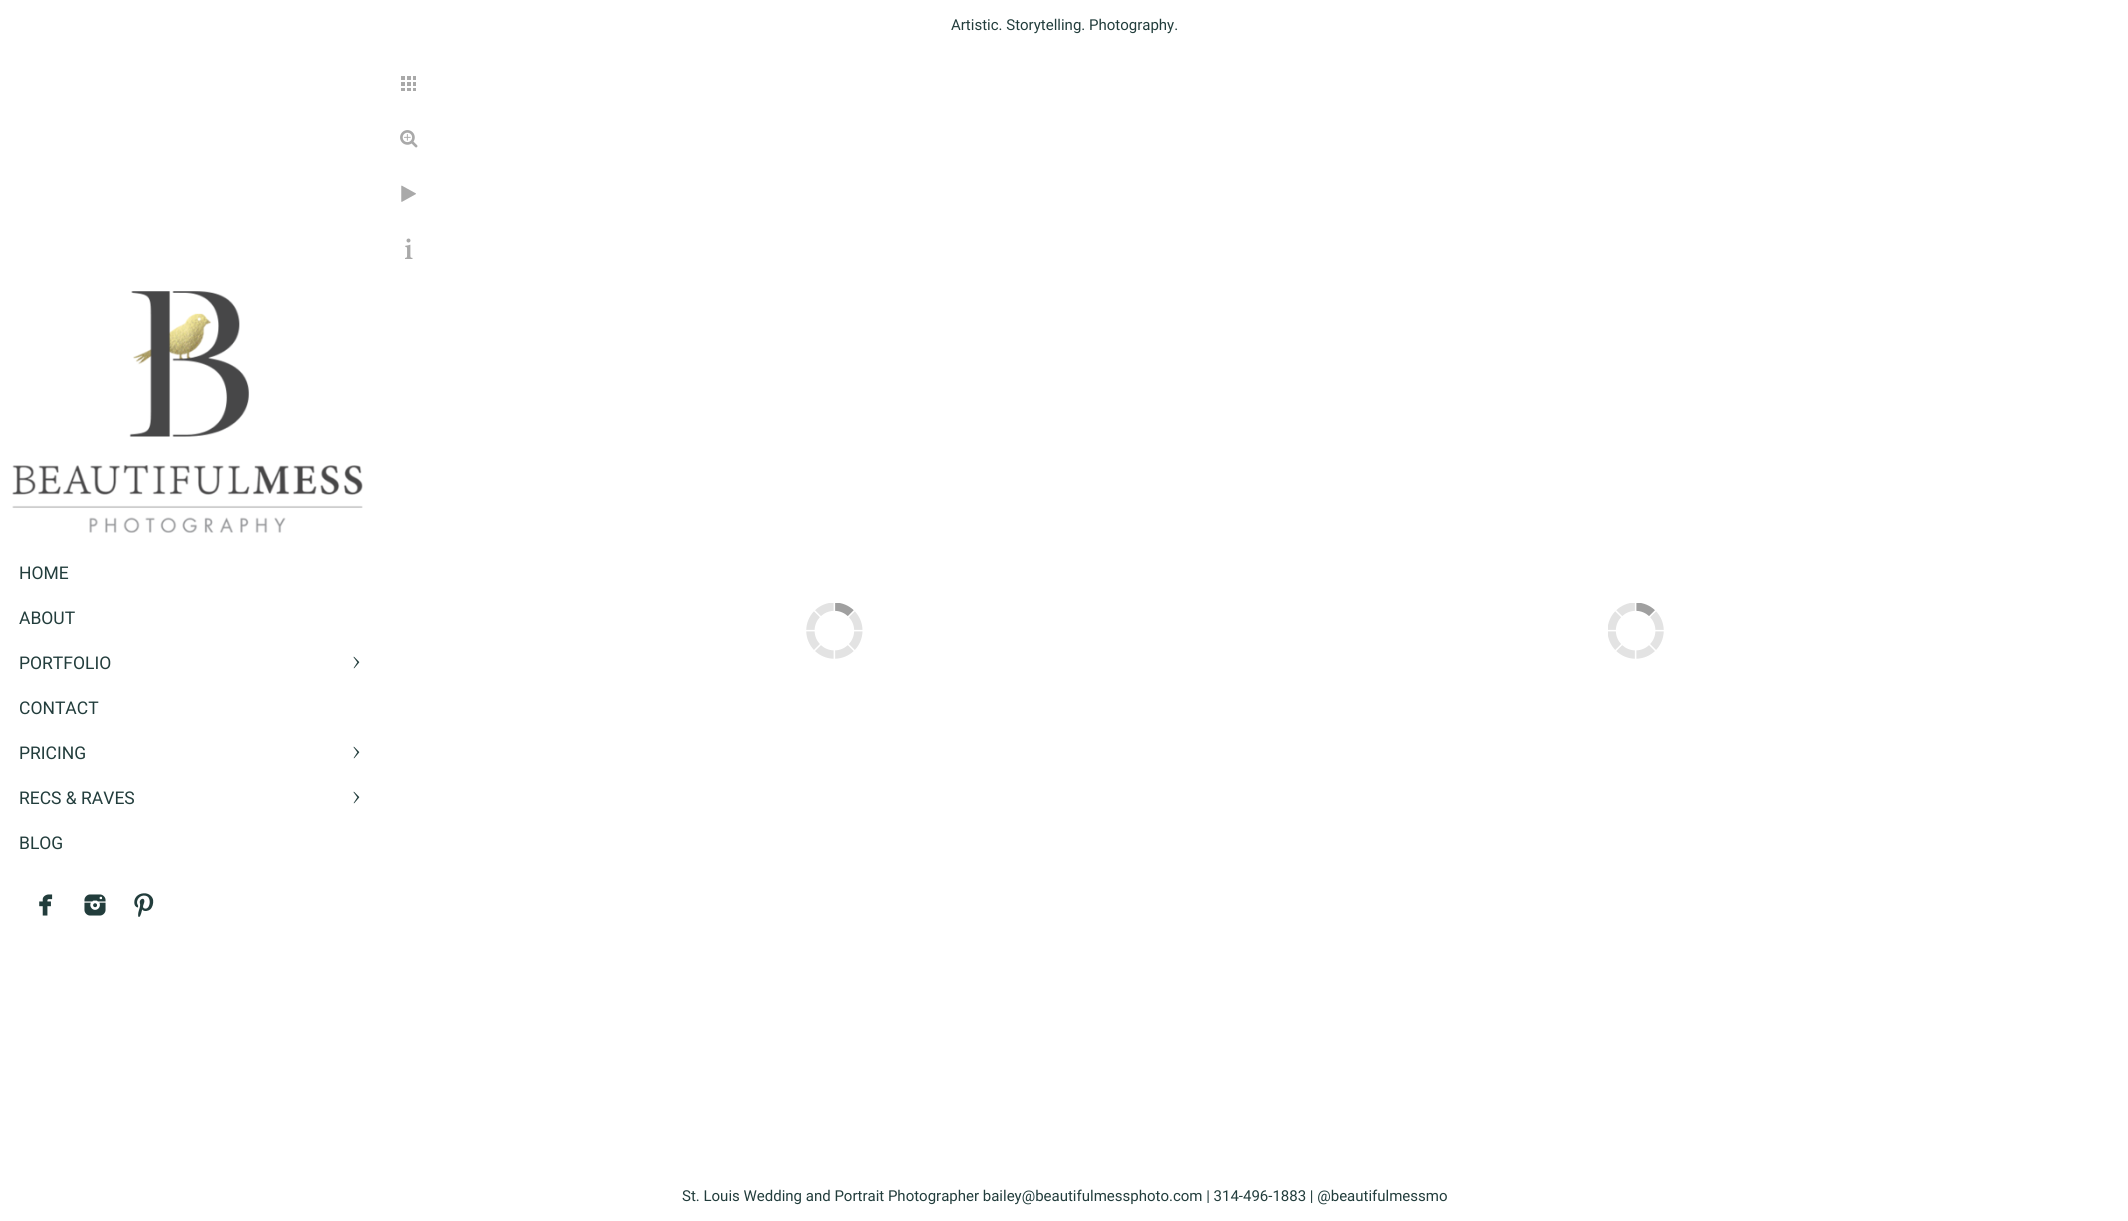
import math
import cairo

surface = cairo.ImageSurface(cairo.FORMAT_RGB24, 2128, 1221)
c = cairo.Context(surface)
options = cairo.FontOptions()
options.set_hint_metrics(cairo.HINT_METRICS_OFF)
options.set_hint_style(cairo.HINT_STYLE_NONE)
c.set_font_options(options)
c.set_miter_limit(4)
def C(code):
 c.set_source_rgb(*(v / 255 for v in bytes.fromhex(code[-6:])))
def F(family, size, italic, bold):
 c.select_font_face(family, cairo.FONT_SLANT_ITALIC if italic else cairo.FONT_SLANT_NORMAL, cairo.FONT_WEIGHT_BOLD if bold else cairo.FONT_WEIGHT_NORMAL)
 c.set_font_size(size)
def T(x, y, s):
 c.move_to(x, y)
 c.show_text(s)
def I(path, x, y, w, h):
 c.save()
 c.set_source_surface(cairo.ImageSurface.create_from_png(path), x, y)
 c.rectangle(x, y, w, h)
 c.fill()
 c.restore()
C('ffffff')
c.paint()
F('Roboto',15,0,0)
C('223d3c')
T(951,30,'Artistic. Storytelling. Photography.')
I('1.png',401,76,15,15)
I('2.png',400,130,18,18)
I('3.png',401,185,15,17)
I('4.png',405,238,8,21)
I('5.png',12,291,351,242)
F('Roboto',17.5,0,0)
T(19,579,'HOME')
T(19,624,'ABOUT')
T(19,669,'PORTFOLIO')
I('6.png',353,656,7,13)
T(19,714,'CONTACT')
T(19,759,'PRICING')
I('6.png',353,746,7,13)
T(19,804,'RECS & RAVES')
I('6.png',353,791,7,13)
T(19,849,'BLOG')
I('7.png',39,894,14,22)
I('8.png',84,894,22,22)
I('9.png',134,893,20,24)
I('10.png',806,603,57,56)
I('11.png',1608,603,56,56)
F('Roboto',15,0,0)
T(682,1201,'St. Louis Wedding and Portrait Photographer bailey@beautifulmessphoto.com | 314-496-1883 | @beautifulmessmo')
surface.write_to_png('o.png')
